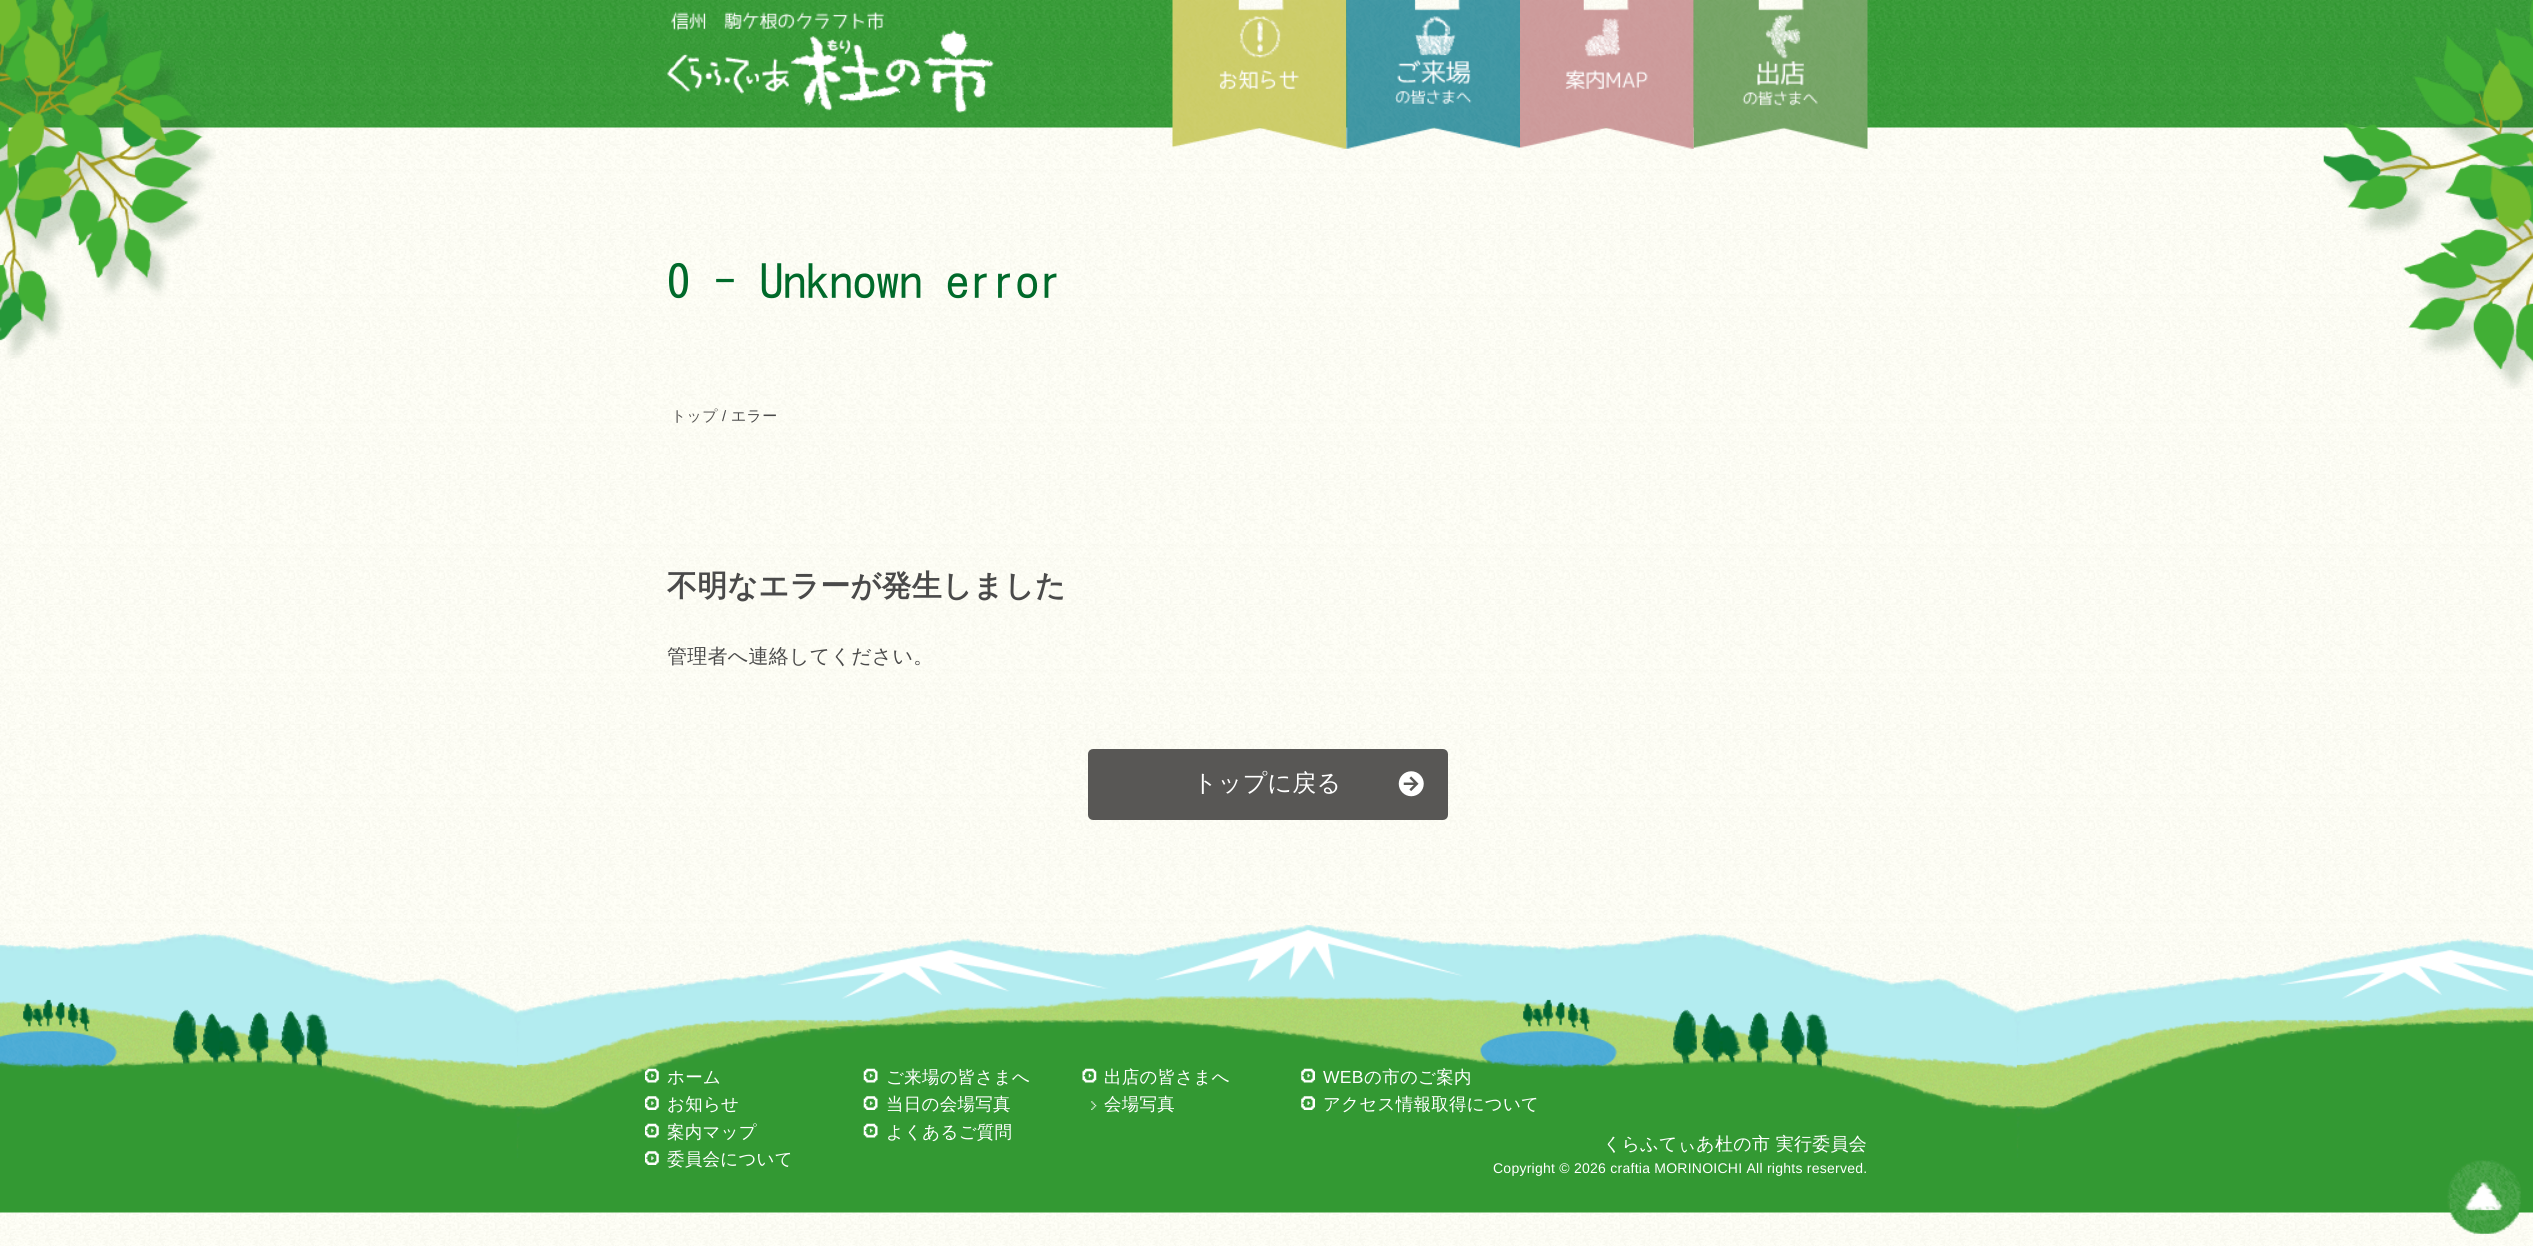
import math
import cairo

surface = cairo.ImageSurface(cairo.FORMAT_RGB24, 2533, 1246)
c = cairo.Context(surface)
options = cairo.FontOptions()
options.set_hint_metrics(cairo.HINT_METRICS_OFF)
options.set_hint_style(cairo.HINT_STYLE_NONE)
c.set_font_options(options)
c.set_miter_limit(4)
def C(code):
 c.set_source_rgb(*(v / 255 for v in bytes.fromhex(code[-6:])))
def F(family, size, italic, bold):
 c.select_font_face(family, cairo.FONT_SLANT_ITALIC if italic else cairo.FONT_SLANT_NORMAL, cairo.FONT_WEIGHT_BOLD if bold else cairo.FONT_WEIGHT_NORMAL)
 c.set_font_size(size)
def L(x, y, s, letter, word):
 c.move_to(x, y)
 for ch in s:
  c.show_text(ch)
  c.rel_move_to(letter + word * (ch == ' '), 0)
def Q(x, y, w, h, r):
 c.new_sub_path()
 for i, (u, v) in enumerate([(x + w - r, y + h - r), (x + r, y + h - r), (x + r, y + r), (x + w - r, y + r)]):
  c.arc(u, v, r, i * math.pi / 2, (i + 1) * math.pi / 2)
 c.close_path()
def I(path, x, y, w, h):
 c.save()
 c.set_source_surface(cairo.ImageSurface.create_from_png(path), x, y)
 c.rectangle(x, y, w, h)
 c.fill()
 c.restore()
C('ffffff')
c.paint()
I('1.png',0,127,2533,1119)
I('2.png',0,0,2533,128)
I('3.png',0,0,216,359)
I('4.png',667,12,327,101)
I('5.png',1172,0,175,149)
I('6.png',1346,0,174,149)
I('7.png',1520,0,174,149)
I('8.png',1693,0,175,149)
I('9.png',2323,0,210,389)
F('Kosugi',46,0,0)
C('006a2a')
L(667,298,'0 - Unknown error',.25,0)
F('WenQuanYi Zen Hei Medium',15,0,0)
C('585755')
L(671,421,'トップ',.25,0)
F('Liberation Sans',15,0,0)
C('4a4a4a')
L(722,421,'/',.25,0)
F('WenQuanYi Zen Hei Medium',15,0,0)
L(731,421,'エラー',.25,0)
F('WenQuanYi Zen Hei',30,0,1)
L(667,596,'不明なエラーが発生しました',.25,0)
F('WenQuanYi Zen Hei Medium',20,0,0)
L(667,663,'管理者へ連絡してください。',.25,0)
C('585755')
Q(1089.5,750.5,357,68,3.5)
c.fill_preserve()
c.set_line_width(3)
c.stroke()
F('WenQuanYi Zen Hei Medium',24,0,0)
C('ffffff')
L(1193,791,'トップに戻る',.25,0)
I('10.png',1398,771,26,26)
I('11.png',0,925,2533,288)
I('12.png',645,1068,14,15)
F('WenQuanYi Zen Hei Medium',17.5,0,0)
L(667,1083,'ホーム',.25,0)
I('13.png',645,1096,14,14)
L(667,1110,'お知らせ',.25,0)
I('14.png',645,1123,14,15)
L(667,1138,'案内マップ',.25,0)
I('13.png',645,1151,14,14)
L(667,1165,'委員会について',.25,0)
I('15.png',863,1068,15,15)
L(886,1083,'ご来場の皆さまへ',.25,0)
I('16.png',863,1096,15,14)
L(886,1110,'当日の会場写真',.25,0)
I('15.png',863,1123,15,15)
L(886,1138,'よくあるご質問',.25,0)
I('17.png',1082,1068,15,15)
L(1104,1083,'出店の皆さまへ',.25,0)
I('18.png',1091,1101,6,9)
L(1104,1110,'会場写真',.25,0)
I('19.png',1301,1068,14,15)
F('Liberation Sans',17.5,0,0)
L(1323,1083,'WEB',.25,0)
F('WenQuanYi Zen Hei Medium',17.5,0,0)
L(1364,1083,'の市のご案内',.25,0)
I('20.png',1301,1096,14,14)
L(1323,1110,'アクセス情報取得について',.25,0)
F('WenQuanYi Zen Hei Medium',18,0,0)
L(1603,1150,'くらふてぃあ杜の市 実行委員会',.25,0)
F('Liberation Sans',14,0,0)
L(1493,1173,'Copyright © 2026 craftia MORINOICHI All rights reserved.',.25,0)
I('21.png',2447,1160,74,74)
surface.write_to_png('o.png')
